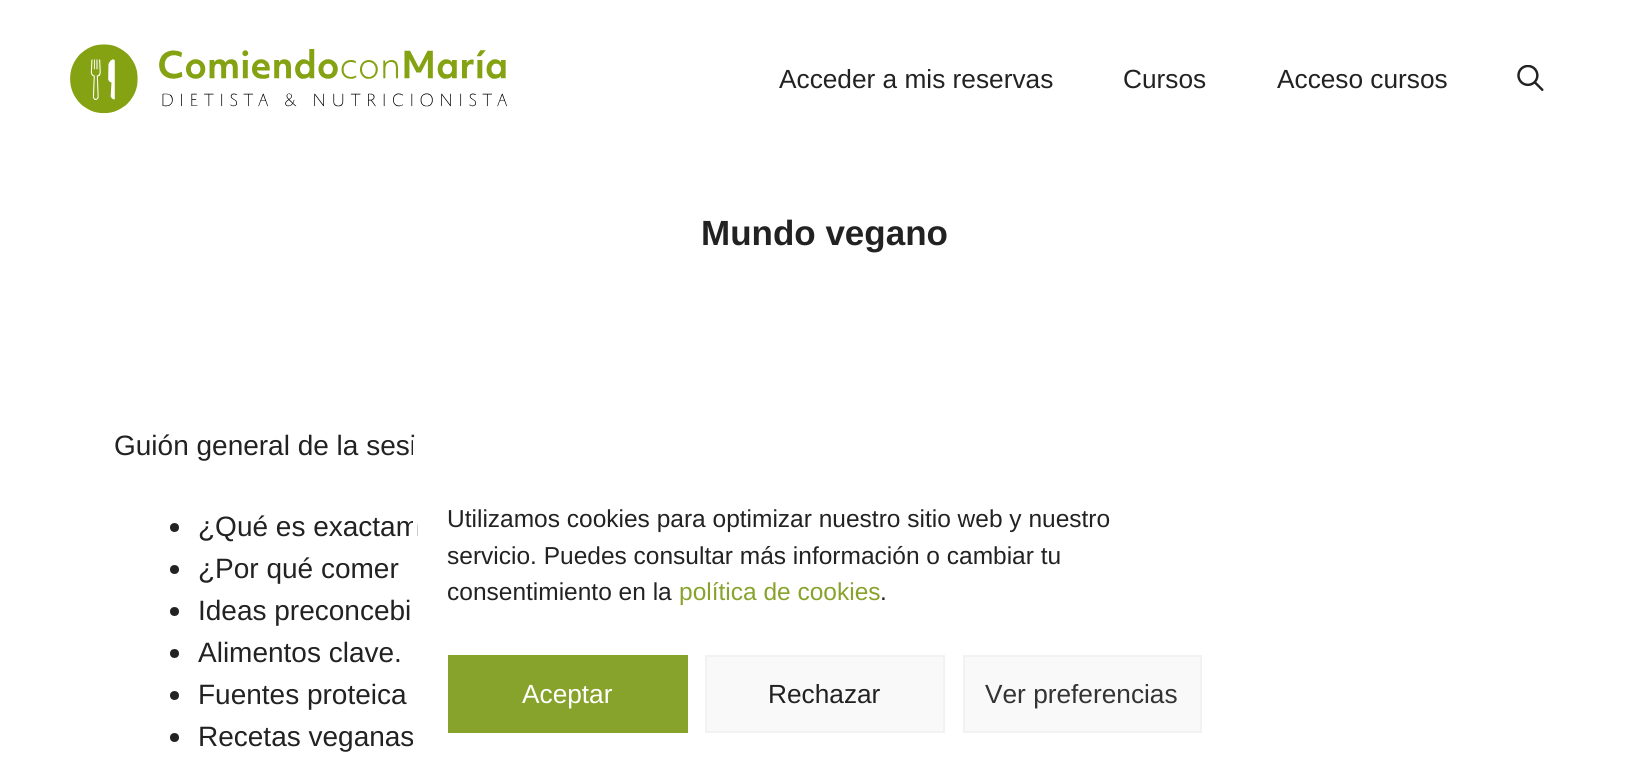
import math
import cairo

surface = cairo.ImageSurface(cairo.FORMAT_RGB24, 1648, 776)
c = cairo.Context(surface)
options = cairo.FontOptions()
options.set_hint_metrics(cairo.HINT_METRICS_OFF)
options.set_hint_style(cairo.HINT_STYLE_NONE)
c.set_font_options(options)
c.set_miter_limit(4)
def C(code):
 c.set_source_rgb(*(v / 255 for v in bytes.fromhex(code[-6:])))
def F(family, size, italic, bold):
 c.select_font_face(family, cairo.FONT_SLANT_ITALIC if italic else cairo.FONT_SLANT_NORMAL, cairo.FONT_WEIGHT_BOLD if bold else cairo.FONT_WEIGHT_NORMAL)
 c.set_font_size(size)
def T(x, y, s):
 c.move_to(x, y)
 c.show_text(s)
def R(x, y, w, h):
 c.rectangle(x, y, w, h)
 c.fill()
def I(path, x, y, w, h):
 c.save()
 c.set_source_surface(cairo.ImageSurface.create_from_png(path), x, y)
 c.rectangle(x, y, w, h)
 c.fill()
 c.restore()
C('ffffff')
c.paint()
I('1.png',70,44,437,70)
F('Liberation Sans',26.25,0,0)
C('222222')
T(779,88,'Acceder a mis reservas')
T(1123,88,'Cursos')
T(1277,88,'Acceso cursos')
I('2.png',1517,65,27,26)
F('Liberation Sans',35,0,1)
T(701,245,'Mundo vegano')
F('Liberation Sans',28,0,0)
T(114,455,'Guión general de la sesi')
c.new_path()
c.arc(174.5,527.5,4.5,0,2 * math.pi)
c.fill()
T(198,536,'¿Qué es exactam')
c.new_path()
c.arc(174.5,569.5,4.5,0,2 * math.pi)
c.fill()
T(198,578,'¿Por qué comer')
c.new_path()
c.arc(174.5,611.5,4.5,0,2 * math.pi)
c.fill()
T(198,620,'Ideas preconcebi')
c.new_path()
c.arc(174.5,653.5,4.5,0,2 * math.pi)
c.fill()
T(198,662,'Alimentos clave.')
c.new_path()
c.arc(174.5,695.5,4.5,0,2 * math.pi)
c.fill()
T(198,704,'Fuentes proteica')
c.new_path()
c.arc(174.5,737.5,4.5,0,2 * math.pi)
c.fill()
T(198,746,'Recetas veganas')
C('ffffff')
R(413,440,4,303)
F('Liberation Sans',24.5,0,0)
C('222222')
T(447,527,'Utilizamos cookies para optimizar nuestro sitio web y nuestro')
T(447,564,'servicio. Puedes consultar más información o cambiar tu')
T(447,600,'consentimiento en la')
C('87a32b')
T(679,600,'política de cookies')
C('222222')
T(880,600,'.')
C('87a32b')
R(448,655,240,78)
F('Liberation Sans',26.25,0,0)
C('ffffff')
T(522,703,'Aceptar')
C('f9f9f9')
c.rectangle(706,656,238,76)
c.fill_preserve()
C('f2f2f2')
c.stroke()
C('222222')
T(768,703,'Rechazar')
C('f9f9f9')
c.rectangle(964,656,237,76)
c.fill_preserve()
C('f2f2f2')
c.stroke()
C('333333')
T(985,703,'Ver preferencias')
surface.write_to_png('o.png')
